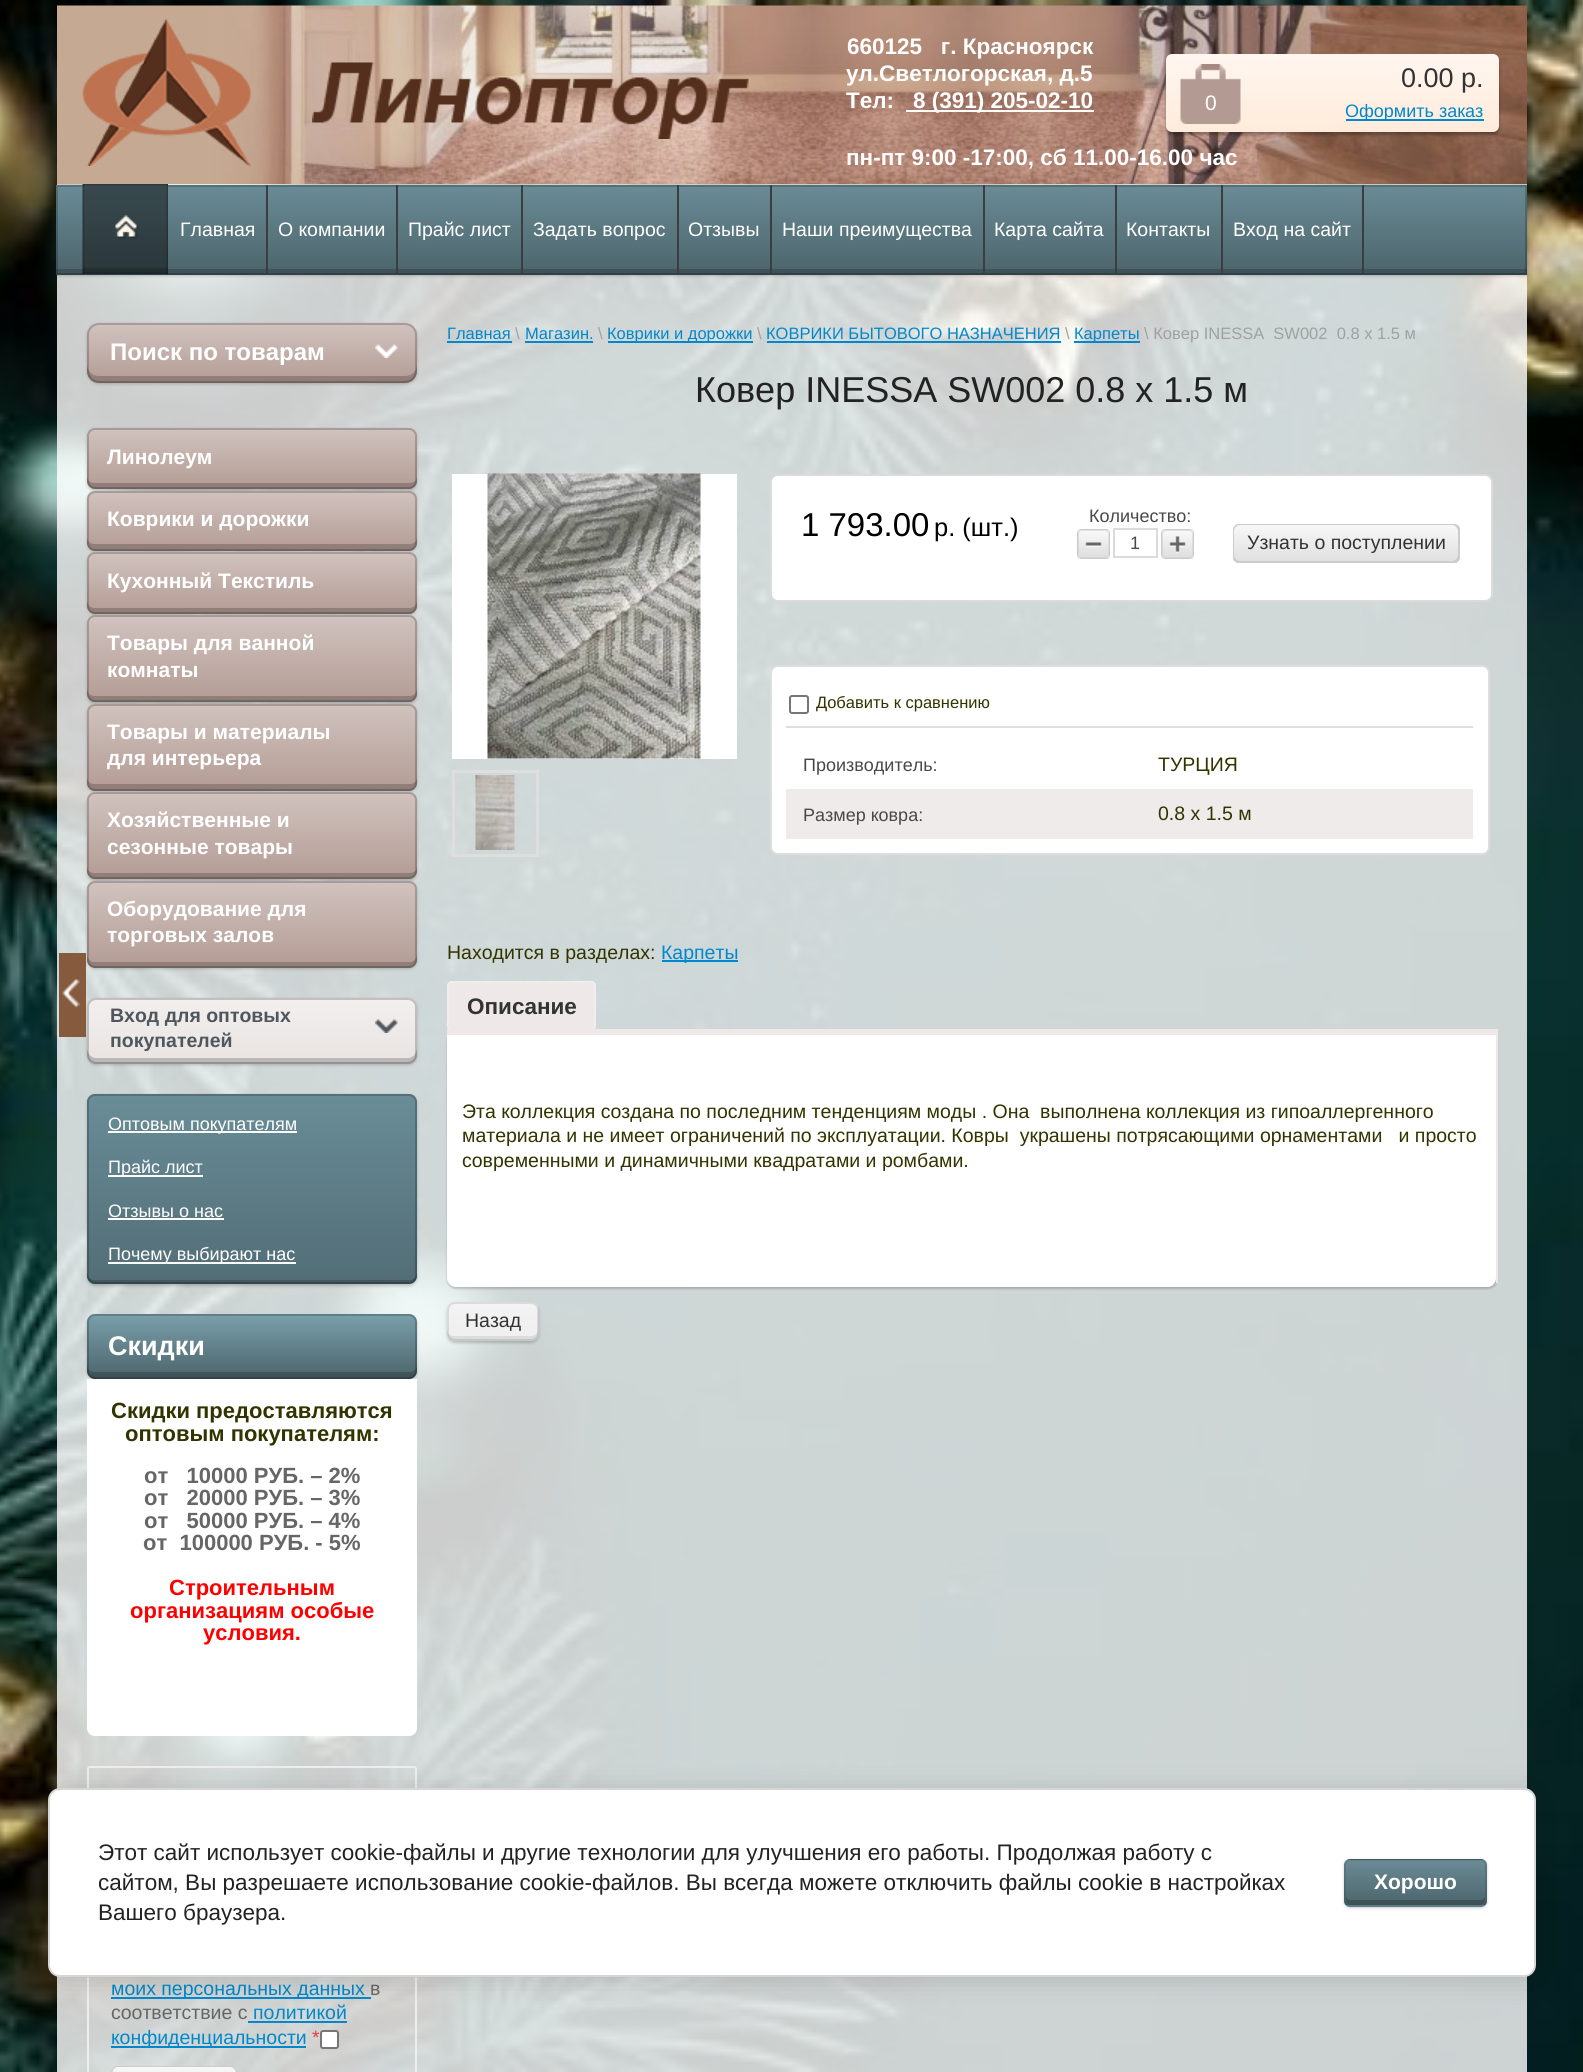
import math
import cairo

surface = cairo.ImageSurface(cairo.FORMAT_RGB24, 1583, 2072)
c = cairo.Context(surface)
options = cairo.FontOptions()
options.set_hint_metrics(cairo.HINT_METRICS_OFF)
options.set_hint_style(cairo.HINT_STYLE_NONE)
c.set_font_options(options)
c.set_miter_limit(4)
def C(code):
 c.set_source_rgb(*(v / 255 for v in bytes.fromhex(code[-6:])))
def F(family, size, italic, bold):
 c.select_font_face(family, cairo.FONT_SLANT_ITALIC if italic else cairo.FONT_SLANT_NORMAL, cairo.FONT_WEIGHT_BOLD if bold else cairo.FONT_WEIGHT_NORMAL)
 c.set_font_size(size)
def T(x, y, s):
 c.move_to(x, y)
 c.show_text(s)
def R(x, y, w, h):
 c.rectangle(x, y, w, h)
 c.fill()
def Q(x, y, w, h, r):
 c.new_sub_path()
 for i, (u, v) in enumerate([(x + w - r, y + h - r), (x + r, y + h - r), (x + r, y + r), (x + w - r, y + r)]):
  c.arc(u, v, r, i * math.pi / 2, (i + 1) * math.pi / 2)
 c.close_path()
def S(x, y, w, h, r, blur, alpha):
 c.push_group_with_content(cairo.CONTENT_ALPHA)
 c.set_operator(cairo.OPERATOR_SOURCE)
 for i in range(15, -16, -2):
  e = blur * i / 6
  if min(w, h) + 2 * e > 0:
   c.set_source_rgba(0, 0, 0, alpha * math.erfc((i - 1) / 8.5) / 2)
   Q(x - e, y - e, w + 2 * e, h + 2 * e, max(0, min(r + e + blur * .6, min(w, h) / 2 + e)))
   c.fill()
 c.mask(c.pop_group())
def I(path, x, y, w, h):
 c.save()
 c.set_source_surface(cairo.ImageSurface.create_from_png(path), x, y)
 c.rectangle(x, y, w, h)
 c.fill()
 c.restore()
C('ffffff')
c.paint()
I('1.png',0,0,1583,2072)
I('2.png',57,5,1470,179)
I('3.png',82,19,169,147)
I('4.png',312,62,437,77)
F('Liberation Sans',22.5,0,1)
C('ffffff')
T(847,54,'660125   г. Красноярск')
T(846,81,'ул.Светлогорская, д.5')
T(846,108,'Тел:')
R(906,110,188,2)
T(913,108,'8 (391) 205-02-10')
T(846,165,'пн-пт 9:00 -17:00, сб 11.00-16.00 час')
C('000000')
S(1166,57,333,78,6,1.5,.3)
gradient = cairo.LinearGradient(1332,54,1332,132)
gradient.add_color_stop_rgba(0,1,0.965,0.941,1)
gradient.add_color_stop_rgba(1,1,0.922,0.859,1)
c.set_source(gradient)
Q(1166,54,333,78,6)
c.fill()
I('5.png',1180,64,61,60)
F('Liberation Sans',21,0,0)
C('ffffff')
T(1205,110,'0')
F('Liberation Sans',27,0,0)
C('333333')
T(1401,87,'0.00 р.')
C('0088cc')
R(1346,119,138,2)
F('Liberation Sans',18,0,0)
T(1345,117,'Оформить заказ')
C('000000')
S(56,186,1471,90,0,1.5,.2)
gradient = cairo.LinearGradient(791,184,791,275)
gradient.add_color_stop_rgba(0,0.416,0.549,0.588,1)
gradient.add_color_stop_rgba(1,0.298,0.392,0.42,1)
c.set_source(gradient)
R(56,185,1471,90)
c.rectangle(57,186,1469,88)
c.set_source_rgba(0,0,0,0.2)
c.stroke()
R(56,269,1471,6)
I('6.png',82,184,86,90)
C('393e44')
R(266,185,2,90)
F('Liberation Sans',19.5,0,0)
C('ffffff')
T(180,236,'Главная')
C('393e44')
R(396,185,2,90)
C('ffffff')
T(278,236,'О компании')
C('393e44')
R(521,185,2,90)
C('ffffff')
T(408,236,'Прайс лист')
C('393e44')
R(677,185,2,90)
C('ffffff')
T(533,236,'Задать вопрос')
C('393e44')
R(770,185,2,90)
C('ffffff')
T(688,236,'Отзывы')
C('393e44')
R(983,185,2,90)
C('ffffff')
T(782,236,'Наши преимущества')
C('393e44')
R(1115,185,2,90)
C('ffffff')
T(994,236,'Карта сайта')
C('393e44')
R(1221,185,2,90)
C('ffffff')
T(1126,236,'Контакты')
C('393e44')
R(1362,185,2,90)
C('ffffff')
T(1233,236,'Вход на сайт')
C('000000')
S(87,429,330,62,8,1.5,.2)
gradient = cairo.LinearGradient(252,428,252,489)
gradient.add_color_stop_rgba(0,0.82,0.765,0.749,1)
gradient.add_color_stop_rgba(1,0.702,0.608,0.58,1)
c.set_source(gradient)
Q(87,428,330,61,8)
c.fill()
Q(88,429,328,59,7)
c.set_source_rgba(0,0,0,0.2)
c.stroke()
c.new_path()
c.move_to(87,476)
c.line_to(87,481)
c.curve_to(87,485,91,489,95,489)
c.line_to(409,489)
c.curve_to(413,489,417,485,417,481)
c.line_to(417,476)
c.curve_to(417,480,414,483,410,483)
c.line_to(94,483)
c.curve_to(90,483,87,480,87,476)
c.close_path()
c.fill()
C('000000')
S(87,492,330,60,8,1.5,.2)
gradient = cairo.LinearGradient(252,491,252,551)
gradient.add_color_stop_rgba(0,0.82,0.765,0.749,1)
gradient.add_color_stop_rgba(1,0.702,0.608,0.58,1)
c.set_source(gradient)
Q(87,491,330,60,8)
c.fill()
Q(88,492,328,58,7)
c.set_source_rgba(0,0,0,0.2)
c.stroke()
c.new_path()
c.move_to(87,537)
c.line_to(87,543)
c.curve_to(87,547,91,551,95,551)
c.line_to(409,551)
c.curve_to(413,551,417,547,417,543)
c.line_to(417,537)
c.curve_to(417,541,414,544,410,544)
c.line_to(94,544)
c.curve_to(90,544,87,541,87,537)
c.close_path()
c.fill()
C('000000')
S(87,554,330,61,8,1.5,.2)
gradient = cairo.LinearGradient(252,552,252,614)
gradient.add_color_stop_rgba(0,0.82,0.765,0.749,1)
gradient.add_color_stop_rgba(1,0.702,0.608,0.58,1)
c.set_source(gradient)
Q(87,552,330,62,8)
c.fill()
Q(88,553,328,60,7)
c.set_source_rgba(0,0,0,0.2)
c.stroke()
c.new_path()
c.move_to(87,600)
c.line_to(87,606)
c.curve_to(87,610,91,614,95,614)
c.line_to(409,614)
c.curve_to(413,614,417,610,417,606)
c.line_to(417,600)
c.curve_to(417,604,414,608,410,608)
c.line_to(94,608)
c.curve_to(90,608,87,604,87,600)
c.close_path()
c.fill()
C('000000')
S(87,617,330,87,8,1.5,.2)
gradient = cairo.LinearGradient(252,615,252,702)
gradient.add_color_stop_rgba(0,0.82,0.765,0.749,1)
gradient.add_color_stop_rgba(1,0.702,0.608,0.58,1)
c.set_source(gradient)
Q(87,615,330,87,8)
c.fill()
Q(88,616,328,85,7)
c.set_source_rgba(0,0,0,0.2)
c.stroke()
c.new_path()
c.move_to(87,688)
c.line_to(87,694)
c.curve_to(87,698,91,702,95,702)
c.line_to(409,702)
c.curve_to(413,702,417,698,417,694)
c.line_to(417,688)
c.curve_to(417,693,414,696,410,696)
c.line_to(94,696)
c.curve_to(90,696,87,693,87,688)
c.close_path()
c.fill()
C('000000')
S(87,705,330,87,8,1.5,.2)
gradient = cairo.LinearGradient(252,704,252,791)
gradient.add_color_stop_rgba(0,0.82,0.765,0.749,1)
gradient.add_color_stop_rgba(1,0.702,0.608,0.58,1)
c.set_source(gradient)
Q(87,704,330,87,8)
c.fill()
Q(88,705,328,85,7)
c.set_source_rgba(0,0,0,0.2)
c.stroke()
c.new_path()
c.move_to(87,777)
c.line_to(87,783)
c.curve_to(87,787,91,791,95,791)
c.line_to(409,791)
c.curve_to(413,791,417,787,417,783)
c.line_to(417,777)
c.curve_to(417,781,414,784,410,784)
c.line_to(94,784)
c.curve_to(90,784,87,781,87,777)
c.close_path()
c.fill()
C('000000')
S(87,794,330,87,8,1.5,.2)
gradient = cairo.LinearGradient(252,792,252,879)
gradient.add_color_stop_rgba(0,0.82,0.765,0.749,1)
gradient.add_color_stop_rgba(1,0.702,0.608,0.58,1)
c.set_source(gradient)
Q(87,792,330,87,8)
c.fill()
Q(88,793,328,85,7)
c.set_source_rgba(0,0,0,0.2)
c.stroke()
c.new_path()
c.move_to(87,866)
c.line_to(87,871)
c.curve_to(87,875,91,879,95,879)
c.line_to(409,879)
c.curve_to(413,879,417,875,417,871)
c.line_to(417,866)
c.curve_to(417,870,414,873,410,873)
c.line_to(94,873)
c.curve_to(90,873,87,870,87,866)
c.close_path()
c.fill()
C('000000')
S(87,882,330,87,8,1.5,.2)
S(87,999,330,66,9,1.5,.2)
C('865a3c')
R(59,953,27,84)
I('7.png',62,979,18,29)
C('000000')
S(87,324,330,60,12,1.5,.2)
gradient = cairo.LinearGradient(252,323,252,383)
gradient.add_color_stop_rgba(0,0.82,0.765,0.749,1)
gradient.add_color_stop_rgba(1,0.702,0.608,0.58,1)
c.set_source(gradient)
Q(87,323,330,60,12)
c.fill()
Q(88,324,328,58,11)
c.set_source_rgba(0,0,0,0.2)
c.stroke()
c.new_path()
c.move_to(87,364)
c.line_to(87,371)
c.curve_to(87,378,92,383,99,383)
c.line_to(405,383)
c.curve_to(412,383,417,378,417,371)
c.line_to(417,364)
c.curve_to(417,371,412,376,405,376)
c.line_to(99,376)
c.curve_to(92,376,87,371,87,364)
c.close_path()
c.fill()
F('Liberation Sans',24,0,1)
C('ffffff')
T(110,360,'Поиск по товарам')
I('8.png',375,344,23,14)
F('Liberation Sans',21,0,1)
T(107,464,'Линолеум')
T(107,526,'Коврики и дорожки')
T(107,588,'Кухонный Текстиль')
T(107,650,'Товары для ванной')
T(107,677,'комнаты')
T(107,739,'Товары и материалы')
T(107,765,'для интерьера')
T(107,827,'Хозяйственные и')
T(107,854,'сезонные товары')
gradient = cairo.LinearGradient(252,881,252,968)
gradient.add_color_stop_rgba(0,0.82,0.765,0.749,1)
gradient.add_color_stop_rgba(1,0.702,0.608,0.58,1)
c.set_source(gradient)
Q(87,881,330,87,8)
c.fill()
Q(88,882,328,85,7)
c.set_source_rgba(0,0,0,0.2)
c.stroke()
c.new_path()
c.move_to(87,954)
c.line_to(87,960)
c.curve_to(87,964,91,968,95,968)
c.line_to(409,968)
c.curve_to(413,968,417,964,417,960)
c.line_to(417,954)
c.curve_to(417,958,414,962,410,962)
c.line_to(94,962)
c.curve_to(90,962,87,958,87,954)
c.close_path()
c.fill()
C('ffffff')
T(107,916,'Оборудование для')
T(107,942,'торговых залов')
gradient = cairo.LinearGradient(252,998,252,1064)
gradient.add_color_stop_rgba(0,0.949,0.937,0.933,1)
gradient.add_color_stop_rgba(1,0.914,0.894,0.886,1)
c.set_source(gradient)
Q(87,998,330,66,9)
c.fill()
Q(88,999,328,64,8)
c.set_source_rgba(0,0,0,0.2)
c.stroke()
c.new_path()
c.move_to(87,1048)
c.line_to(87,1055)
c.curve_to(87,1060,91,1064,96,1064)
c.line_to(408,1064)
c.curve_to(413,1064,417,1060,417,1055)
c.line_to(417,1048)
c.curve_to(417,1053,413,1058,408,1058)
c.line_to(96,1058)
c.curve_to(91,1058,87,1053,87,1048)
c.close_path()
c.fill()
F('Liberation Sans',19.5,0,1)
C('50565e')
T(110,1022,'Вход для оптовых')
I('9.png',375,1019,23,14)
T(110,1047,'покупателей')
C('000000')
S(87,1095,330,191,8,1.5,.2)
gradient = cairo.LinearGradient(252,1094,252,1284)
gradient.add_color_stop_rgba(0,0.412,0.553,0.596,1)
gradient.add_color_stop_rgba(1,0.322,0.427,0.463,1)
c.set_source(gradient)
Q(87,1094,330,190,8)
c.fill()
Q(88,1095,328,188,7)
c.set_source_rgba(0,0,0,0.2)
c.stroke()
c.new_path()
c.move_to(87,1272)
c.line_to(87,1276)
c.curve_to(87,1280,91,1284,95,1284)
c.line_to(409,1284)
c.curve_to(413,1284,417,1280,417,1276)
c.line_to(417,1272)
c.curve_to(417,1276,414,1280,410,1280)
c.line_to(94,1280)
c.curve_to(90,1280,87,1276,87,1272)
c.close_path()
c.fill()
C('fefefe')
R(108,1131,189,2)
F('Liberation Sans',18,0,0)
C('ffffff')
T(108,1130,'Оптовым покупателям')
C('fefefe')
R(108,1175,95,2)
C('ffffff')
T(108,1173,'Прайс лист')
T(108,1217,'Отзывы о нас')
C('fefefe')
R(108,1218,116,2)
R(108,1262,188,2)
C('ffffff')
T(108,1260,'Почему выбирают нас')
C('000000')
S(87,1316,330,64,8,1.5,.2)
gradient = cairo.LinearGradient(252,1314,252,1379)
gradient.add_color_stop_rgba(0,0.478,0.627,0.671,1)
gradient.add_color_stop_rgba(1,0.298,0.392,0.42,1)
c.set_source(gradient)
Q(87,1314,330,65,8)
c.fill()
Q(88,1315,328,63,7)
c.set_source_rgba(0,0,0,0.2)
c.stroke()
c.new_path()
c.move_to(87,1365)
c.line_to(87,1371)
c.curve_to(87,1375,91,1379,95,1379)
c.line_to(409,1379)
c.curve_to(413,1379,417,1375,417,1371)
c.line_to(417,1365)
c.curve_to(417,1369,414,1372,410,1372)
c.line_to(94,1372)
c.curve_to(90,1372,87,1369,87,1365)
c.close_path()
c.fill()
F('Liberation Sans',27,0,1)
C('ffffff')
T(108,1355,'Скидки')
c.new_path()
c.move_to(87,1379)
c.line_to(417,1379)
c.line_to(417,1728)
c.curve_to(417,1732.5,413.5,1736,409,1736)
c.line_to(95,1736)
c.curve_to(90.5,1736,87,1732.5,87,1728)
c.close_path()
c.fill()
F('Liberation Sans',22,0,1)
C('333300')
T(111,1418,'Скидки предоставляются')
T(125,1441,'оптовым покупателям:')
C('666666')
T(144,1483,'от   10000 РУБ. – 2%')
T(144,1505,'от   20000 РУБ. – 3%')
T(144,1528,'от   50000 РУБ. – 4%')
T(143,1550,'от  100000 РУБ. - 5%')
C('ff0000')
T(169,1595,'Строительным')
T(130,1618,'организациям особые')
T(203,1640,'условия.')
Q(88,1767,328,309,2)
C('eeeeee')
c.stroke()
C('0088cc')
R(111,1997,260,2)
F('Liberation Sans',19.5,0,0)
T(111,1995,'моих персональных данных')
C('666666')
T(370,1995,'в')
T(111,2019,'соответствие с')
C('0088cc')
T(253,2019,'политикой')
R(248,2021,99,2)
R(111,2046,195,2)
T(111,2044,'конфиденциальности')
C('eb3c3c')
T(312,2044,'*')
C('ffffff')
Q(321,2031,17,17,2)
c.fill_preserve()
C('767676')
c.stroke()
gradient = cairo.LinearGradient(174,2066,174,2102)
gradient.add_color_stop_rgba(0,0.973,0.973,0.973,1)
gradient.add_color_stop_rgba(1,0.875,0.875,0.875,1)
c.set_source(gradient)
Q(111,2066,126,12,6)
c.fill()
C('cccccc')
c.new_path()
c.move_to(116,2067)
c.line_to(230,2067)
c.curve_to(233,2067,236,2070,236,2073)
c.line_to(236,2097)
c.curve_to(236,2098,235,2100,234,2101)
c.curve_to(236,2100,237,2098,237,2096)
c.line_to(237,2072)
c.curve_to(237,2069,234,2066,231,2066)
c.line_to(117,2066)
c.curve_to(115,2066,114,2067,113,2068)
c.close_path()
c.fill()
c.new_path()
c.move_to(111,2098)
c.curve_to(112,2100,114,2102,117,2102)
c.line_to(231,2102)
c.curve_to(234,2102,237,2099,237,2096)
c.line_to(237,2072)
c.curve_to(237,2071,236,2069,236,2068)
c.line_to(236,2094)
c.curve_to(236,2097,233,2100,230,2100)
c.line_to(116,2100)
c.curve_to(114,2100,112,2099,111,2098)
c.close_path()
c.fill()
c.new_path()
c.move_to(118,2067)
c.line_to(232,2067)
c.curve_to(233,2067,235,2067,235,2068)
c.curve_to(234,2067,233,2066,231,2066)
c.line_to(117,2066)
c.curve_to(114,2066,111,2069,111,2072)
c.line_to(111,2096)
c.curve_to(111,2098,112,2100,114,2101)
c.curve_to(110,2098,112,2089,112,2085)
c.curve_to(112,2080,110,2067,118,2067)
c.close_path()
c.fill()
F('Liberation Sans',16.5,0,0)
C('0088cc')
T(447,339,'Главная')
R(447,341,65,2)
C('a0a0a0')
T(515,339,'\\')
C('0088cc')
T(525,339,'Магазин.')
R(525,341,68,2)
C('a0a0a0')
T(598,339,'\\')
C('0088cc')
R(608,341,145,2)
T(607,339,'Коврики и дорожки')
C('a0a0a0')
T(757,339,'\\')
C('0088cc')
T(766,339,'КОВРИКИ БЫТОВОГО НАЗНАЧЕНИЯ')
R(767,341,294,2)
C('a0a0a0')
T(1065,339,'\\')
C('0088cc')
R(1074,341,66,2)
T(1074,339,'Карпеты')
C('a0a0a0')
T(1144,339,'\\ Ковер INESSA  SW002  0.8 х 1.5 м')
F('Liberation Sans',36,0,0)
C('222222')
T(695,402,'Ковер INESSA SW002 0.8 х 1.5 м')
C('ffffff')
R(452,474,285,285)
I('10.png',487,473,214,286)
c.rectangle(453.5,771.5,84,84)
C('dedede')
c.set_line_width(3)
c.stroke()
I('11.png',475,775,40,75)
C('ffffff')
Q(771,475,721,126,7)
c.fill_preserve()
C('dbdbdb')
c.set_line_width(2)
c.stroke()
F('Liberation Sans',33,0,0)
C('000000')
T(801,536,'1 793.00')
F('Liberation Sans',25.5,0,0)
T(934,536,'р. (шт.)')
F('Liberation Sans',18,0,0)
C('484848')
T(1089,522,'Количество:')
I('12.png',1077,529,33,30)
c.rectangle(1114,529,43,28)
C('dbdbdb')
c.stroke()
C('484848')
T(1130,549,'1')
I('13.png',1161,529,33,30)
gradient = cairo.LinearGradient(1346,524,1346,563)
gradient.add_color_stop_rgba(0,0.973,0.973,0.973,1)
gradient.add_color_stop_rgba(1,0.875,0.875,0.875,1)
c.set_source(gradient)
Q(1233,524,227,39,6)
c.fill()
C('cccccc')
c.new_path()
c.move_to(1234,526)
c.curve_to(1234,527,1233,529,1233,530)
c.line_to(1233,557)
c.curve_to(1233,560,1236,563,1239,563)
c.line_to(1454,563)
c.curve_to(1457,563,1459,561,1460,558)
c.curve_to(1459,560,1457,561,1455,561)
c.line_to(1240,561)
c.curve_to(1237,561,1234,558,1234,555)
c.close_path()
c.fill()
c.new_path()
c.move_to(1238,525)
c.line_to(1452,525)
c.curve_to(1455,525,1458,528,1458,531)
c.line_to(1458,558)
c.curve_to(1458,560,1457,562,1455,563)
c.curve_to(1458,562,1460,560,1460,557)
c.line_to(1460,530)
c.curve_to(1460,527,1457,524,1454,524)
c.line_to(1239,524)
c.curve_to(1237,524,1236,525,1235,526)
c.close_path()
c.fill()
c.new_path()
c.move_to(1233,559)
c.curve_to(1234,561,1236,563,1239,563)
c.line_to(1454,563)
c.curve_to(1457,563,1460,560,1460,557)
c.line_to(1460,530)
c.curve_to(1460,528,1459,526,1457,525)
c.curve_to(1458,526,1458,527,1458,528)
c.line_to(1458,555)
c.curve_to(1458,558,1455,561,1452,561)
c.line_to(1238,561)
c.curve_to(1236,561,1234,560,1233,559)
c.close_path()
c.fill()
c.new_path()
c.move_to(1240,525)
c.line_to(1456,525)
c.line_to(1459,527)
c.curve_to(1458,525,1456,524,1454,524)
c.line_to(1239,524)
c.curve_to(1236,524,1233,527,1233,530)
c.line_to(1233,557)
c.curve_to(1233,559,1234,561,1236,562)
c.curve_to(1235,561,1234,559,1234,558)
c.line_to(1234,531)
c.curve_to(1234,528,1237,525,1240,525)
c.close_path()
c.fill()
F('Liberation Sans',19.5,0,0)
C('333333')
T(1247,549,'Узнать о поступлении')
C('ffffff')
Q(771,666,718,188,7)
c.fill_preserve()
C('dedede')
c.stroke()
R(786,726,687,2)
Q(790,696,18,17,2)
C('767676')
c.stroke()
F('Liberation Sans',16.5,0,0)
C('333300')
T(816,708,'Добавить к сравнению')
F('Liberation Sans',18,0,0)
C('484848')
T(803,771,'Производитель:')
F('Liberation Sans',19.5,0,0)
C('333300')
T(1158,771,'ТУРЦИЯ')
C('efebea')
R(786,789,687,50)
F('Liberation Sans',18,0,0)
C('484848')
T(803,821,'Размер ковра:')
F('Liberation Sans',19.5,0,0)
C('333300')
T(1158,820,'0.8 х 1.5 м')
T(447,959,'Находится в разделах:')
C('0088cc')
R(662,960,76,2)
T(661,959,'Карпеты')
C('000000')
S(447,1031,1050,258,9,1,.19)
C('eee9e8')
R(447,1029,1050,6)
Q(447,981,149,50,5)
c.fill()
c.new_path()
c.move_to(449,1028.5)
c.curve_to(446.5,1026.5,448,1021,448,1019)
c.line_to(448,992)
c.curve_to(448,989.5,446.5,982,451.5,982)
c.line_to(568,982)
c.curve_to(600,982,595,976,595,1006)
c.line_to(595,1019)
c.curve_to(595,1021,596,1026.5,593.5,1028.5)
C('f3efec')
c.set_line_width(1.5)
c.stroke()
F('Liberation Sans',22.5,0,1)
C('333333')
T(467,1014,'Описание')
C('ffffff')
c.new_path()
c.move_to(447,1035)
c.line_to(1496,1035)
c.line_to(1496,1278)
c.curve_to(1496,1283,1492,1287,1488,1287)
c.line_to(456,1287)
c.curve_to(451,1287,447,1283,447,1278)
c.close_path()
c.fill()
C('eee9e8')
R(1496,1029,2,254)
F('Liberation Sans',19.5,0,0)
C('333300')
T(462,1118,'Эта коллекция создана по последним тенденциям моды . Она  выполнена коллекция из гипоаллергенного')
T(462,1142,'материала и не имеет ограничений по эксплуатации. Ковры  украшены потрясающими орнаментами   и просто')
T(462,1167,'современными и динамичными квадратами и ромбами.')
C('000000')
S(447,1304,92,39,8,1.5,.2)
gradient = cairo.LinearGradient(493,1302,493,1341)
gradient.add_color_stop_rgba(0,0.953,0.953,0.953,1)
gradient.add_color_stop_rgba(1,0.937,0.937,0.937,1)
c.set_source(gradient)
Q(447,1302,92,39,8)
c.fill()
Q(448,1303,90,37,7)
c.set_source_rgba(0,0,0,0.1)
c.set_line_width(2)
c.stroke()
c.set_source_rgba(0,0,0,0.08)
c.new_path()
c.move_to(447,1329)
c.line_to(447,1333)
c.curve_to(447,1337,451,1341,455,1341)
c.line_to(531,1341)
c.curve_to(535,1341,539,1337,539,1333)
c.line_to(539,1310)
c.curve_to(539,1309,539,1307,538,1306)
c.line_to(538,1329)
c.curve_to(538,1333,535,1336,531,1336)
c.line_to(454,1336)
c.curve_to(450,1336,447,1333,447,1329)
c.close_path()
c.fill()
C('333333')
T(465,1327,'Назад')
C('000000')
S(51,1791,1488,189,12,13.5,.14)
C('ffffff')
Q(49,1789,1486,187,11)
c.fill_preserve()
C('d6d6d6')
c.stroke()
F('Liberation Sans',22.5,0,0)
C('222222')
T(98,1860,'Этот сайт использует cookie-файлы и другие технологии для улучшения его работы. Продолжая работу с')
T(98,1890,'сайтом, Вы разрешаете использование cookie-файлов. Вы всегда можете отключить файлы cookie в настройках')
T(98,1920,'Вашего браузера.')
C('000000')
S(1344,1860,143,48,6,1.5,.2)
c.save()
Q(1344,1859,143,48,6)
c.clip()
gradient = cairo.LinearGradient(1415,1815,1415,1860)
gradient.add_color_stop_rgba(0,0.416,0.549,0.588,1)
gradient.add_color_stop_rgba(1,0.298,0.392,0.42,1)
c.set_source(gradient)
R(1344,1859,143,1)
gradient = cairo.LinearGradient(1415,1860,1415,1905)
gradient.add_color_stop_rgba(0,0.416,0.549,0.588,1)
gradient.add_color_stop_rgba(1,0.298,0.392,0.42,1)
c.set_source(gradient)
R(1344,1860,143,45)
gradient = cairo.LinearGradient(1415,1905,1415,1950)
gradient.add_color_stop_rgba(0,0.416,0.549,0.588,1)
gradient.add_color_stop_rgba(1,0.298,0.392,0.42,1)
c.set_source(gradient)
R(1344,1905,143,2)
c.restore()
c.set_source_rgba(0,0,0,0.2)
c.new_path()
c.move_to(1346,1896)
c.line_to(1346,1900)
c.curve_to(1346,1903,1348,1905,1351,1905)
c.line_to(1480,1905)
c.curve_to(1483,1905,1485,1903,1485,1900)
c.line_to(1485,1896)
c.curve_to(1485,1898,1483,1900,1481,1900)
c.line_to(1350,1900)
c.curve_to(1348,1900,1346,1898,1346,1896)
c.close_path()
c.fill()
Q(1345,1860,141,46,5)
c.set_source_rgba(0,0,0,0.1)
c.stroke()
F('Liberation Sans',21,0,1)
C('ffffff')
T(1374,1889,'Хорошо')
surface.write_to_png('o.png')
